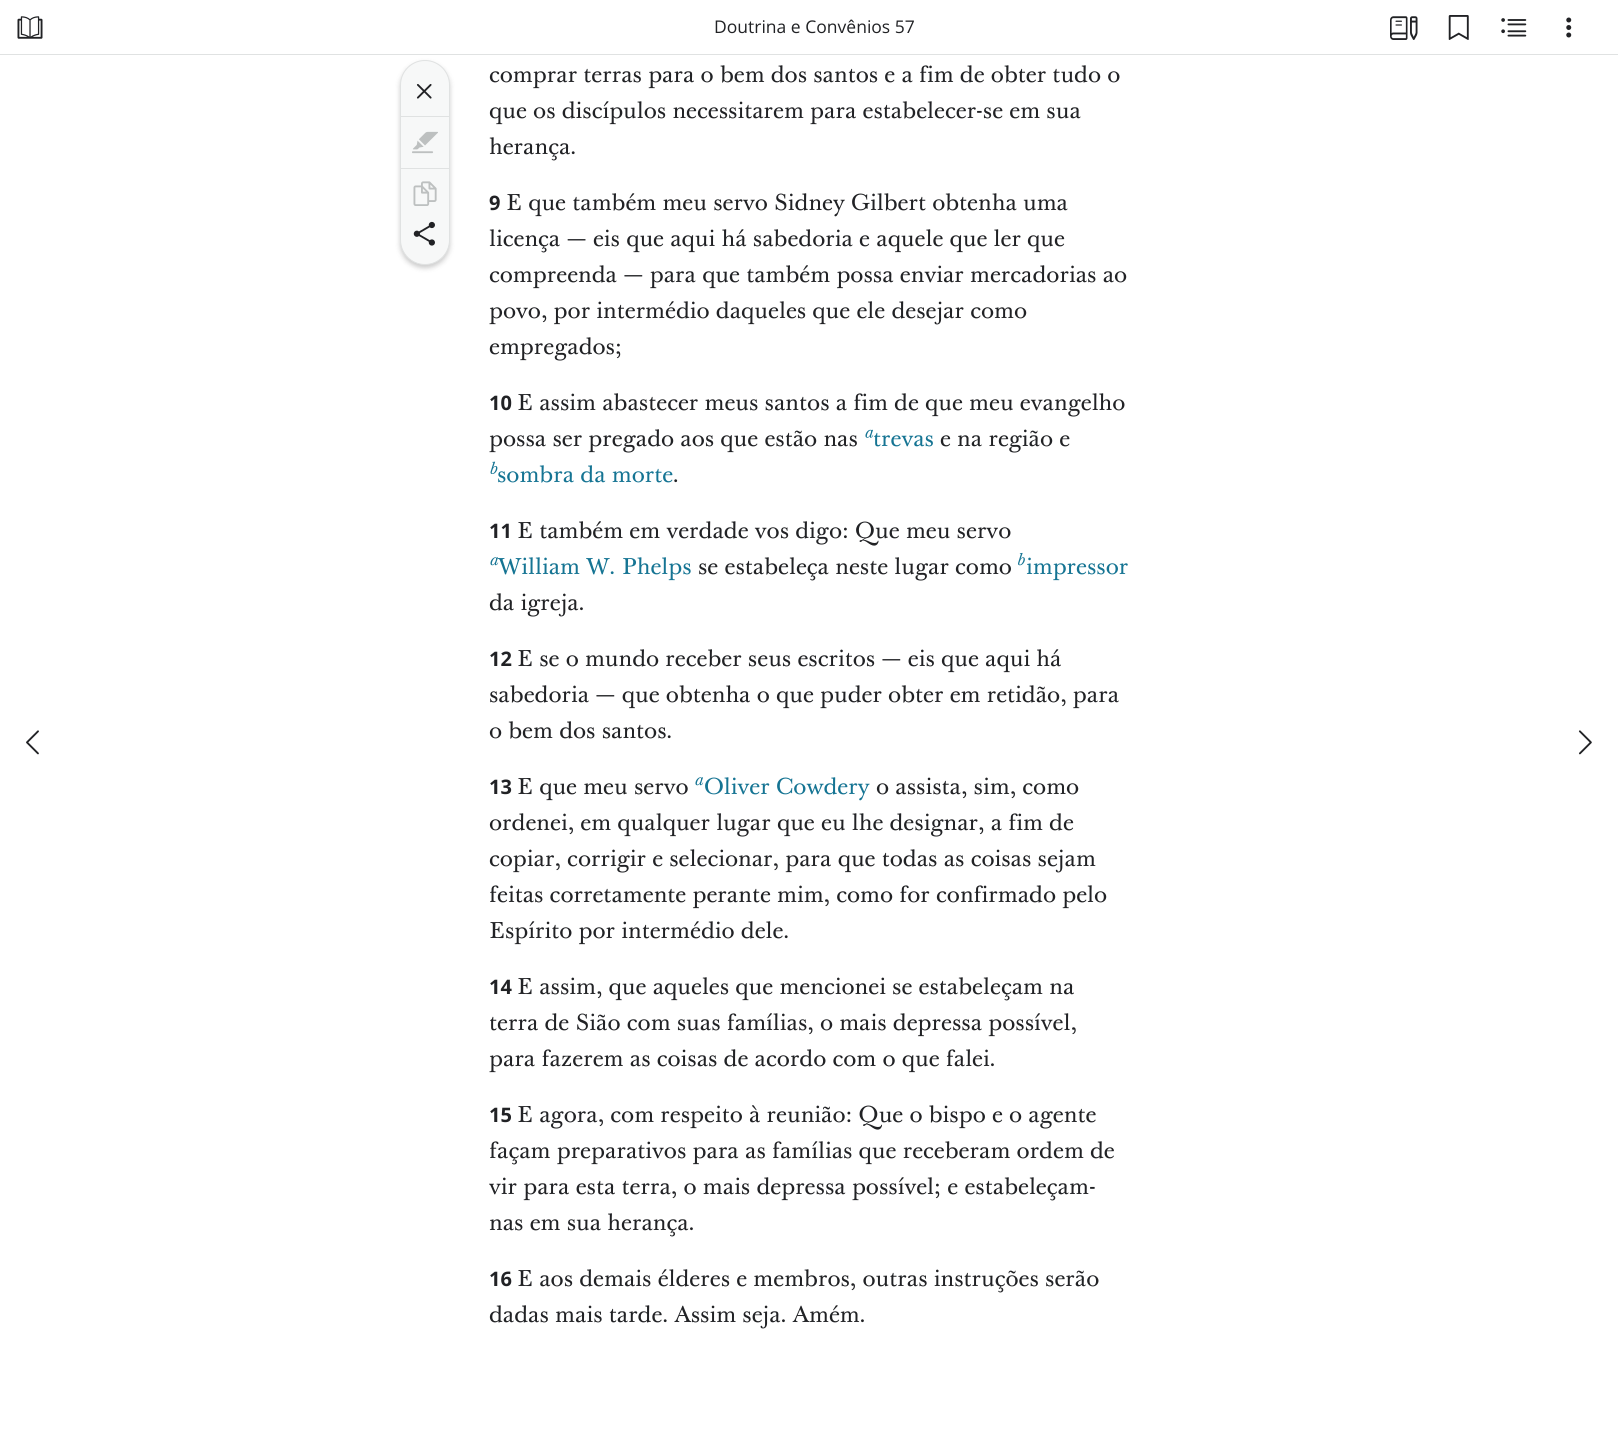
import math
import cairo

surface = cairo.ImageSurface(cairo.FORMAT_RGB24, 1618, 1435)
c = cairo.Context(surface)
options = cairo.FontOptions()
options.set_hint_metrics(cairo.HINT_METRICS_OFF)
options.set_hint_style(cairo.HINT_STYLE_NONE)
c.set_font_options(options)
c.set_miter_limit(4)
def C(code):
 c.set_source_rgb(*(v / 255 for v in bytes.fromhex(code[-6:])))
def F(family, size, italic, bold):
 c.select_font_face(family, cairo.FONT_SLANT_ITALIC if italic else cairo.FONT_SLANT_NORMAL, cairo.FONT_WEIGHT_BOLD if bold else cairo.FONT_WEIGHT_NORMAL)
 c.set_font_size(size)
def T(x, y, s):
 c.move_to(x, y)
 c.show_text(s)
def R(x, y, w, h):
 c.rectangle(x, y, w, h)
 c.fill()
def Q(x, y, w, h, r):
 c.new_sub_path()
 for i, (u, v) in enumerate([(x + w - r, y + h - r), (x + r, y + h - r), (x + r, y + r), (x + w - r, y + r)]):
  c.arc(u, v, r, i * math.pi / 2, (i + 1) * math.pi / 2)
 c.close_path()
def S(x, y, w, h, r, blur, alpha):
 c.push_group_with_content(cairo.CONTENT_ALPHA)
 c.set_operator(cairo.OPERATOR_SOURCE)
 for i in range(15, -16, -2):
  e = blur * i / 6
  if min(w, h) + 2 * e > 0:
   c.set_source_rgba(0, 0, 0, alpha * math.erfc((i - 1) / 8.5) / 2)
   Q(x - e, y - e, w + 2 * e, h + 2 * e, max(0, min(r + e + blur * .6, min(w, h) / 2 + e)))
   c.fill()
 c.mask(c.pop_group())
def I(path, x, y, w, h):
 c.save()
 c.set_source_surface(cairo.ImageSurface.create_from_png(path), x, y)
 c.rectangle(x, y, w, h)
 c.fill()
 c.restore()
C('ffffff')
c.paint()
C('000000')
S(400,63,50,205,25,2.5,.2)
C('e0e2e2')
R(0,54,1618,1)
I('1.png',17,16,26,23)
F('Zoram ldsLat',17.5,0,0)
C('212225')
T(714,33,'Doutrina e Convênios 57')
I('2.png',1390,16,28,24)
I('3.png',1448,15,21,25)
I('4.png',1501,18,26,19)
I('5.png',1566,17,6,21)
I('6.png',26,730,13,25)
C('f7f8f8')
Q(400.5,60.5,49,204,24.5)
c.fill_preserve()
C('e0e2e2')
c.set_line_width(1)
c.stroke()
I('7.png',416,84,16,15)
R(401,116,48,1)
I('8.png',412,131,26,23)
R(401,168,48,1)
I('9.png',413,181,24,25)
I('10.png',413,221,22,25)
F('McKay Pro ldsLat',22.5,0,0)
C('212225')
T(489,82,'comprar terras para o bem dos santos e a fim de obter tudo o')
T(489,118,'que os discípulos necessitarem para estabelecer-se em sua')
T(489,154,'herança.')
F('Noto Sans Myanmar',20,0,1)
T(489,210,'9')
F('McKay Pro ldsLat',22.5,0,0)
T(506,210,'E que também meu servo Sidney Gilbert obtenha uma')
T(489,246,'licença — eis que aqui há sabedoria e aquele que ler que')
T(489,282,'compreenda — para que também possa enviar mercadorias ao')
T(489,318,'povo, por intermédio daqueles que ele desejar como')
T(489,354,'empregados;')
F('Noto Sans Myanmar',20,0,1)
T(489,410,'10')
F('McKay Pro ldsLat',22.5,0,0)
T(517,410,'E assim abastecer meus santos a fim de que meu evangelho')
T(489,446,'possa ser pregado aos que estão nas')
I('11.png',865,429,9,9)
C('157493')
T(873,446,'trevas')
C('212225')
T(940,446,'e na região e')
I('12.png',490,461,8,13)
C('157493')
T(497,482,'sombra da morte')
C('212225')
T(673,482,'.')
F('Noto Sans Myanmar',20,0,1)
T(489,538,'11')
F('McKay Pro ldsLat',22.5,0,0)
T(517,538,'E também em verdade vos digo: Que meu servo')
I('13.png',490,557,9,9)
C('157493')
T(498,574,'William W. Phelps')
C('212225')
T(698,574,'se estabeleça neste lugar como')
I('14.png',1018,552,7,14)
C('157493')
T(1026,574,'impressor')
C('212225')
T(489,610,'da igreja.')
F('Noto Sans Myanmar',20,0,1)
T(489,666,'12')
F('McKay Pro ldsLat',22.5,0,0)
T(517,666,'E se o mundo receber seus escritos — eis que aqui há')
T(489,702,'sabedoria — que obtenha o que puder obter em retidão, para')
T(489,738,'o bem dos santos.')
F('Noto Sans Myanmar',20,0,1)
T(489,794,'13')
F('McKay Pro ldsLat',22.5,0,0)
T(517,794,'E que meu servo')
I('13.png',695,777,9,9)
C('157493')
T(704,794,'Oliver Cowdery')
C('212225')
T(876,794,'o assista, sim, como')
T(489,830,'ordenei, em qualquer lugar que eu lhe designar, a fim de')
T(489,866,'copiar, corrigir e selecionar, para que todas as coisas sejam')
T(489,902,'feitas corretamente perante mim, como for confirmado pelo')
T(489,938,'Espírito por intermédio dele.')
F('Noto Sans Myanmar',20,0,1)
T(489,994,'14')
F('McKay Pro ldsLat',22.5,0,0)
T(517,994,'E assim, que aqueles que mencionei se estabeleçam na')
T(489,1030,'terra de Sião com suas famílias, o mais depressa possível,')
T(489,1066,'para fazerem as coisas de acordo com o que falei.')
F('Noto Sans Myanmar',20,0,1)
T(489,1122,'15')
F('McKay Pro ldsLat',22.5,0,0)
T(517,1122,'E agora, com respeito à reunião: Que o bispo e o agente')
T(489,1158,'façam preparativos para as famílias que receberam ordem de')
T(489,1194,'vir para esta terra, o mais depressa possível; e estabeleçam-')
T(489,1230,'nas em sua herança.')
F('Noto Sans Myanmar',20,0,1)
T(489,1286,'16')
F('McKay Pro ldsLat',22.5,0,0)
T(517,1286,'E aos demais élderes e membros, outras instruções serão')
T(489,1322,'dadas mais tarde. Assim seja. Amém.')
I('15.png',1578,730,14,25)
surface.write_to_png('o.png')
